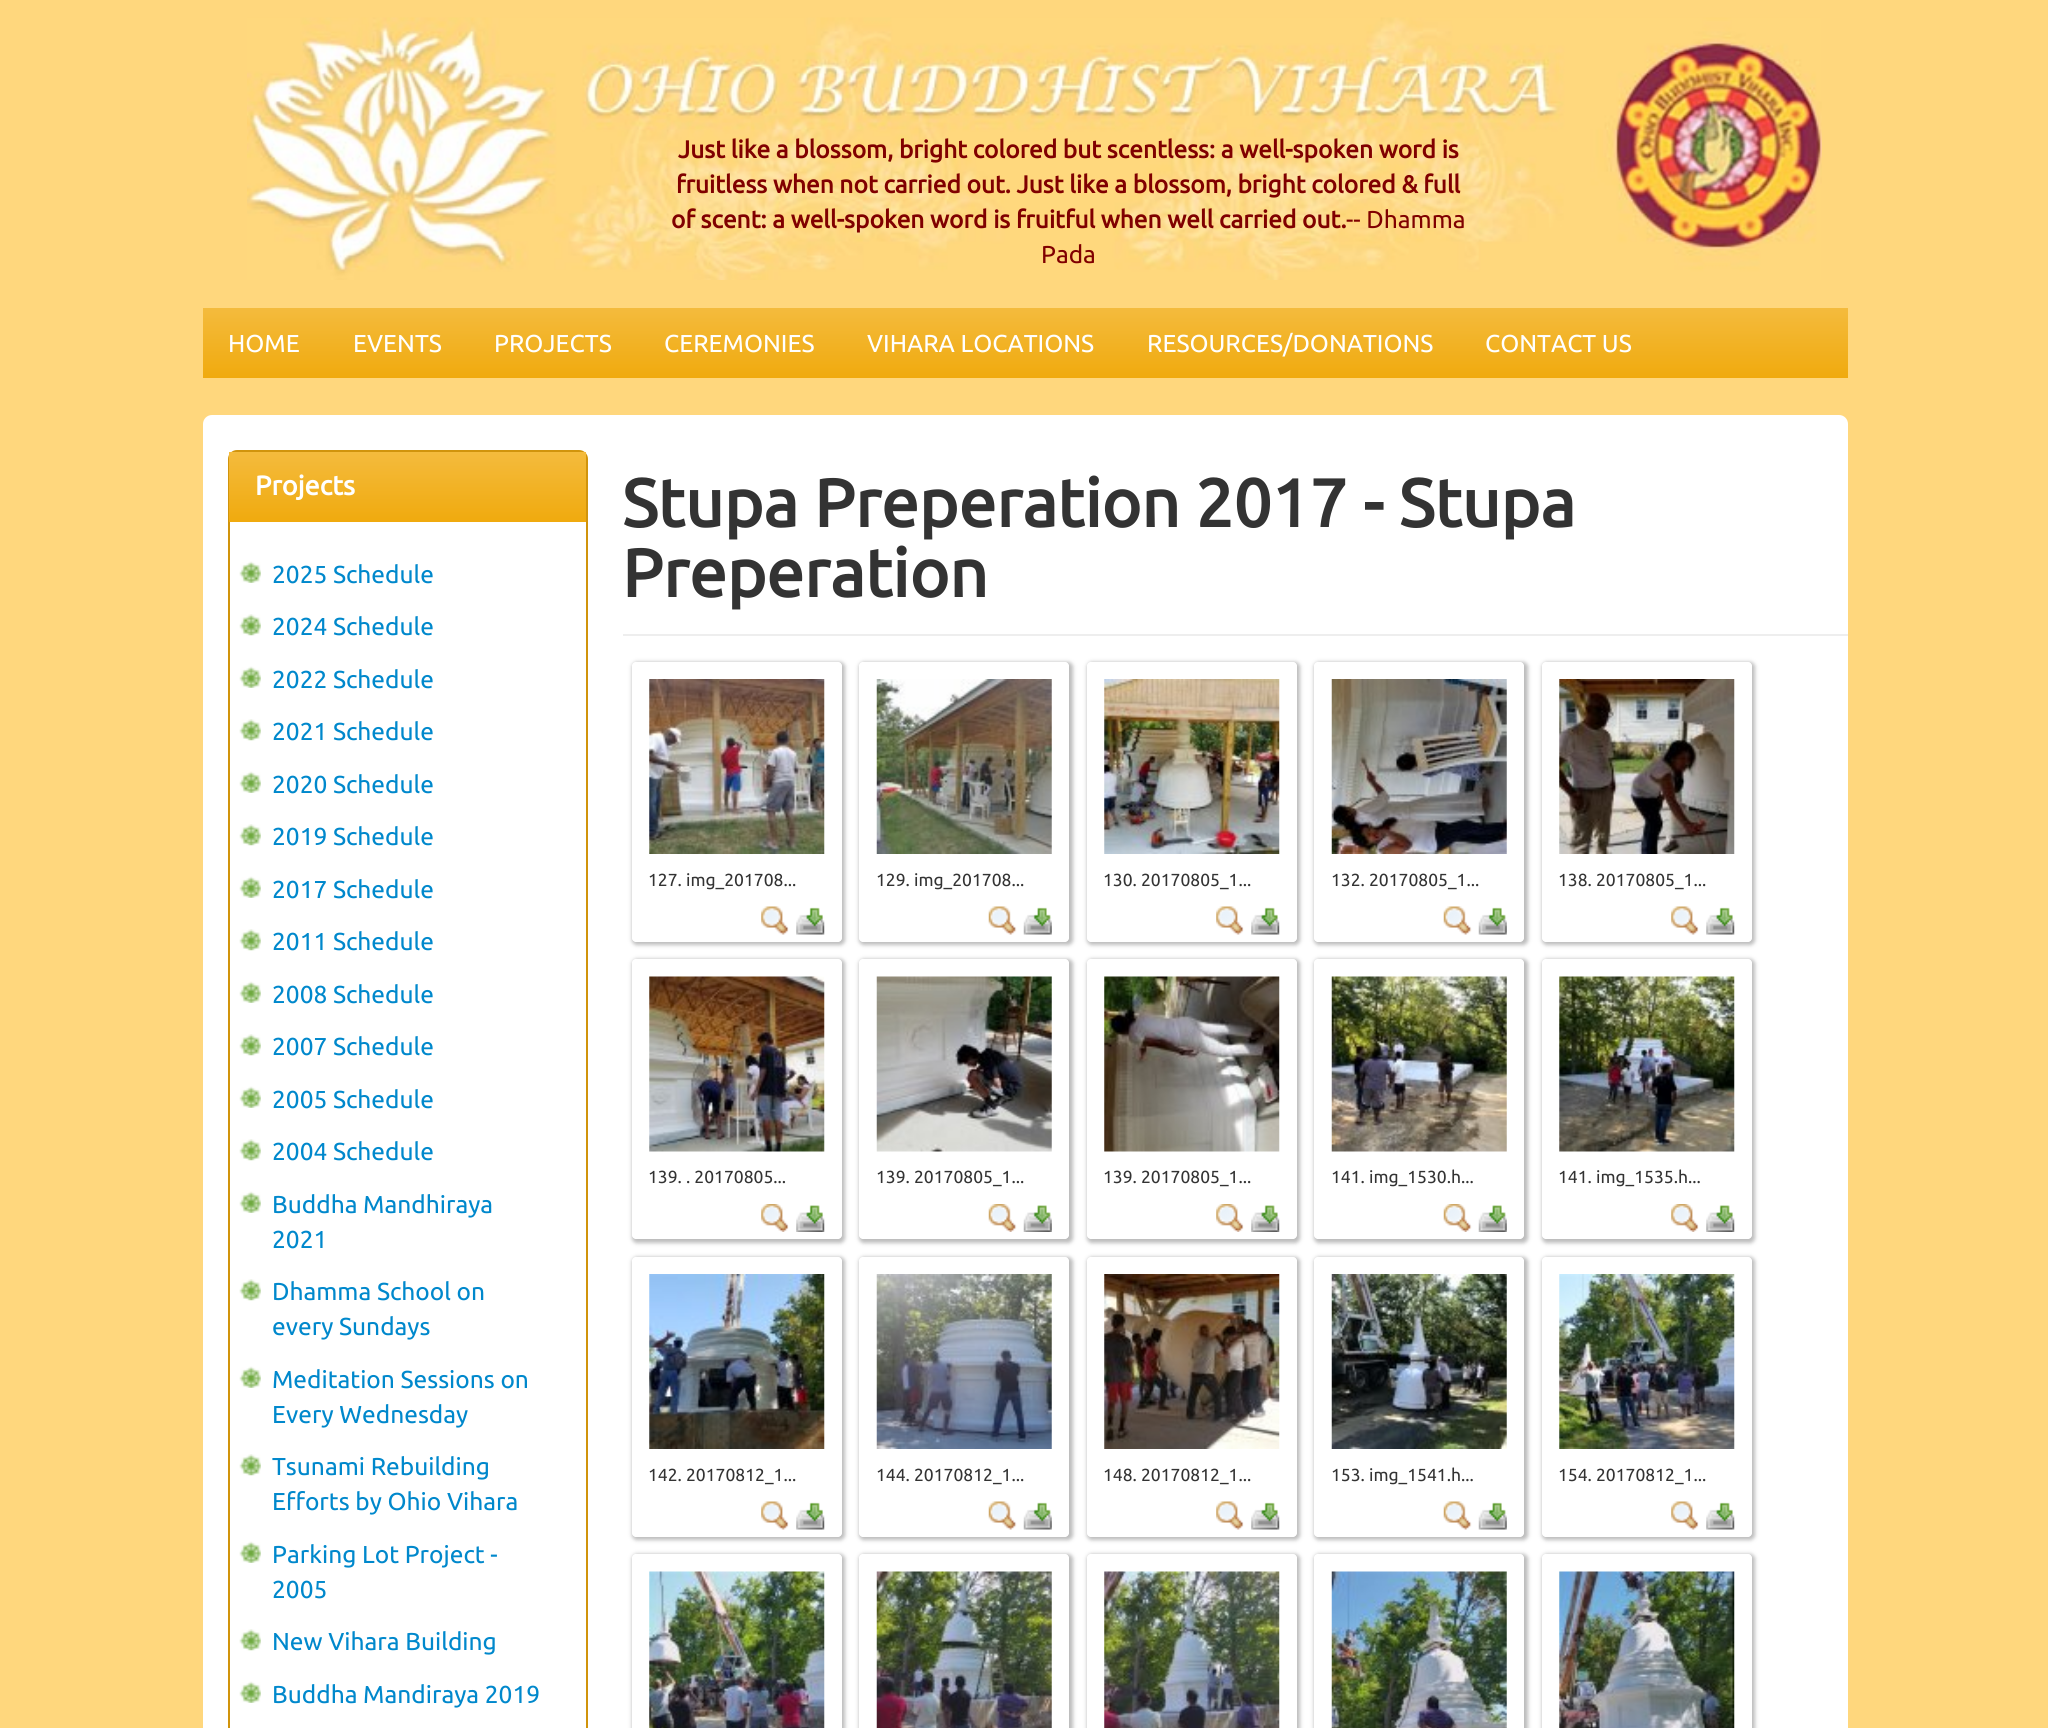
import math
import cairo

surface = cairo.ImageSurface(cairo.FORMAT_RGB24, 2048, 1728)
c = cairo.Context(surface)
options = cairo.FontOptions()
options.set_hint_metrics(cairo.HINT_METRICS_OFF)
options.set_hint_style(cairo.HINT_STYLE_NONE)
c.set_font_options(options)
c.set_miter_limit(4)
def C(code):
 c.set_source_rgb(*(v / 255 for v in bytes.fromhex(code[-6:])))
def F(family, size, italic, bold):
 c.select_font_face(family, cairo.FONT_SLANT_ITALIC if italic else cairo.FONT_SLANT_NORMAL, cairo.FONT_WEIGHT_BOLD if bold else cairo.FONT_WEIGHT_NORMAL)
 c.set_font_size(size)
def T(x, y, s):
 c.move_to(x, y)
 c.show_text(s)
def R(x, y, w, h):
 c.rectangle(x, y, w, h)
 c.fill()
def Q(x, y, w, h, r):
 c.new_sub_path()
 for i, (u, v) in enumerate([(x + w - r, y + h - r), (x + r, y + h - r), (x + r, y + r), (x + w - r, y + r)]):
  c.arc(u, v, r, i * math.pi / 2, (i + 1) * math.pi / 2)
 c.close_path()
def S(x, y, w, h, r, blur, alpha):
 c.push_group_with_content(cairo.CONTENT_ALPHA)
 c.set_operator(cairo.OPERATOR_SOURCE)
 for i in range(15, -16, -2):
  e = blur * i / 6
  if min(w, h) + 2 * e > 0:
   c.set_source_rgba(0, 0, 0, alpha * math.erfc((i - 1) / 8.5) / 2)
   Q(x - e, y - e, w + 2 * e, h + 2 * e, max(0, min(r + e + blur * .6, min(w, h) / 2 + e)))
   c.fill()
 c.mask(c.pop_group())
def I(path, x, y, w, h):
 c.save()
 c.set_source_surface(cairo.ImageSurface.create_from_png(path), x, y)
 c.rectangle(x, y, w, h)
 c.fill()
 c.restore()
C('ffd77d')
c.paint()
I('1.png',247,17,1575,263)
F('Ubuntu',24.5,0,1)
C('800000')
T(678,158,'Just like a blossom, bright colored but scentless: a well-spoken word is')
T(676,193,'fruitless when not carried out. Just like a blossom, bright colored & full')
T(671,228,'of scent: a well-spoken word is fruitful when well carried out.')
F('Ubuntu',24.5,0,0)
T(1346,228,'-- Dhamma')
T(1041,263,'Pada')
gradient = cairo.LinearGradient(1026,308,1026,378)
gradient.add_color_stop_rgba(0,0.957,0.733,0.239,1)
gradient.add_color_stop_rgba(1,0.941,0.667,0.055,1)
c.set_source(gradient)
R(203,308,1645,70)
C('ffffff')
T(228,352,'HOME')
T(353,352,'EVENTS')
T(494,352,'PROJECTS')
T(664,352,'CEREMONIES')
T(867,352,'VIHARA LOCATIONS')
T(1147,352,'RESOURCES/DONATIONS')
T(1485,352,'CONTACT US')
Q(203,415,1645,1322,9)
c.fill()
Q(229,451,358,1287,8)
C('d1940c')
c.stroke()
gradient = cairo.LinearGradient(408,452,408,522)
gradient.add_color_stop_rgba(0,0.957,0.733,0.239,1)
gradient.add_color_stop_rgba(1,0.941,0.667,0.055,1)
c.set_source(gradient)
R(229,452,357,70)
F('Ubuntu',27,0,1)
C('ffffff')
T(255,495,'Projects')
I('2.png',239,561,22,22)
F('Ubuntu',24.5,0,0)
C('0088cc')
T(272,583,'2025 Schedule')
I('3.png',239,614,22,22)
T(272,635,'2024 Schedule')
I('2.png',239,666,22,22)
T(272,688,'2022 Schedule')
I('3.png',239,719,22,22)
T(272,740,'2021 Schedule')
I('2.png',239,771,22,22)
T(272,793,'2020 Schedule')
I('3.png',239,824,22,22)
T(272,845,'2019 Schedule')
I('2.png',239,876,22,22)
T(272,898,'2017 Schedule')
I('3.png',239,929,22,22)
T(272,950,'2011 Schedule')
I('2.png',239,981,22,22)
T(272,1003,'2008 Schedule')
I('3.png',239,1034,22,22)
T(272,1055,'2007 Schedule')
I('2.png',239,1086,22,22)
T(272,1108,'2005 Schedule')
I('3.png',239,1139,22,22)
T(272,1160,'2004 Schedule')
I('2.png',239,1191,22,22)
T(272,1213,'Buddha Mandhiraya')
T(272,1248,'2021')
I('3.png',239,1279,22,22)
T(272,1300,'Dhamma School on')
T(272,1335,'every Sundays')
I('2.png',239,1366,22,22)
T(272,1388,'Meditation Sessions on')
T(272,1423,'Every Wednesday')
I('3.png',239,1454,22,22)
T(272,1475,'Tsunami Rebuilding')
T(272,1510,'Efforts by Ohio Vihara')
I('2.png',239,1541,22,22)
T(272,1563,'Parking Lot Project -')
T(272,1598,'2005')
I('3.png',239,1629,22,22)
T(272,1650,'New Vihara Building')
I('2.png',239,1681,22,22)
T(272,1703,'Buddha Mandiraya 2019')
C('eeeeee')
R(623,634,1225,2)
F('Ubuntu',67.4,0,1)
C('333333')
T(622,527,'Stupa Preperation 2017 - Stupa')
T(622,597,'Preperation')
c.save()
c.set_fill_rule(cairo.FILL_RULE_EVEN_ODD)
c.new_path()
c.move_to(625,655)
c.line_to(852,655)
c.line_to(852,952)
c.line_to(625,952)
c.close_path()
c.move_to(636,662)
c.line_to(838,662)
c.curve_to(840,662,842,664,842,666)
c.line_to(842,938)
c.curve_to(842,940,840,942,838,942)
c.line_to(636,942)
c.curve_to(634,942,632,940,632,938)
c.line_to(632,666)
c.curve_to(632,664,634,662,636,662)
c.close_path()
c.clip()
C('787878')
S(632,662,213,283,5,2,.5)
c.restore()
I('4.png',649,679,176,175)
F('Ubuntu',17.5,0,0)
T(648,886,'127. img_201708...')
I('5.png',761,906,28,29)
I('6.png',796,907,29,28)
c.save()
c.set_fill_rule(cairo.FILL_RULE_EVEN_ODD)
c.new_path()
c.move_to(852,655)
c.line_to(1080,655)
c.line_to(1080,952)
c.line_to(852,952)
c.close_path()
c.move_to(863,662)
c.line_to(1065,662)
c.curve_to(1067,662,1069,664,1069,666)
c.line_to(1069,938)
c.curve_to(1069,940,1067,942,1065,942)
c.line_to(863,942)
c.curve_to(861,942,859,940,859,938)
c.line_to(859,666)
c.curve_to(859,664,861,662,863,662)
c.close_path()
c.clip()
C('787878')
S(859,662,214,283,5,2,.5)
c.restore()
I('7.png',876,679,176,175)
T(876,886,'129. img_201708...')
I('8.png',988,906,29,29)
I('9.png',1023,907,29,28)
c.save()
c.set_fill_rule(cairo.FILL_RULE_EVEN_ODD)
c.new_path()
c.move_to(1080,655)
c.line_to(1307,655)
c.line_to(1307,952)
c.line_to(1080,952)
c.close_path()
c.move_to(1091,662)
c.line_to(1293,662)
c.curve_to(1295,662,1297,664,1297,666)
c.line_to(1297,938)
c.curve_to(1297,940,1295,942,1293,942)
c.line_to(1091,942)
c.curve_to(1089,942,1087,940,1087,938)
c.line_to(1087,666)
c.curve_to(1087,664,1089,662,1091,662)
c.close_path()
c.clip()
C('787878')
S(1087,662,213,283,5,2,.5)
c.restore()
I('10.png',1104,679,176,175)
T(1103,886,'130. 20170805_1...')
I('5.png',1216,906,28,29)
I('11.png',1251,907,29,28)
c.save()
c.set_fill_rule(cairo.FILL_RULE_EVEN_ODD)
c.new_path()
c.move_to(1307,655)
c.line_to(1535,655)
c.line_to(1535,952)
c.line_to(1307,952)
c.close_path()
c.move_to(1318,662)
c.line_to(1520,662)
c.curve_to(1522,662,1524,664,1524,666)
c.line_to(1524,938)
c.curve_to(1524,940,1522,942,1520,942)
c.line_to(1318,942)
c.curve_to(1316,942,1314,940,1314,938)
c.line_to(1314,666)
c.curve_to(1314,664,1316,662,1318,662)
c.close_path()
c.clip()
C('787878')
S(1314,662,214,283,5,2,.5)
c.restore()
I('12.png',1331,679,176,175)
T(1331,886,'132. 20170805_1...')
I('8.png',1443,906,29,29)
I('13.png',1478,907,29,28)
c.save()
c.set_fill_rule(cairo.FILL_RULE_EVEN_ODD)
c.new_path()
c.move_to(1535,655)
c.line_to(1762,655)
c.line_to(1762,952)
c.line_to(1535,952)
c.close_path()
c.move_to(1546,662)
c.line_to(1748,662)
c.curve_to(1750,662,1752,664,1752,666)
c.line_to(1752,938)
c.curve_to(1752,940,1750,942,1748,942)
c.line_to(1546,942)
c.curve_to(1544,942,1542,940,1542,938)
c.line_to(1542,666)
c.curve_to(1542,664,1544,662,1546,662)
c.close_path()
c.clip()
C('787878')
S(1542,662,213,283,5,2,.5)
c.restore()
I('14.png',1559,679,176,175)
T(1558,886,'138. 20170805_1...')
I('5.png',1671,906,28,29)
I('11.png',1706,907,29,28)
c.save()
c.set_fill_rule(cairo.FILL_RULE_EVEN_ODD)
c.new_path()
c.move_to(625,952)
c.line_to(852,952)
c.line_to(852,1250)
c.line_to(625,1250)
c.close_path()
c.move_to(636,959)
c.line_to(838,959)
c.curve_to(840,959,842,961,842,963)
c.line_to(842,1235)
c.curve_to(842,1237,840,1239,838,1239)
c.line_to(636,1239)
c.curve_to(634,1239,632,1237,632,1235)
c.line_to(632,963)
c.curve_to(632,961,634,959,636,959)
c.close_path()
c.clip()
C('787878')
S(632,959,213,284,5,2,.5)
c.restore()
I('15.png',649,976,176,176)
T(648,1183,'139. . 20170805...')
I('16.png',761,1204,28,28)
I('17.png',796,1205,29,27)
c.save()
c.set_fill_rule(cairo.FILL_RULE_EVEN_ODD)
c.new_path()
c.move_to(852,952)
c.line_to(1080,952)
c.line_to(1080,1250)
c.line_to(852,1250)
c.close_path()
c.move_to(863,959)
c.line_to(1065,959)
c.curve_to(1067,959,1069,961,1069,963)
c.line_to(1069,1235)
c.curve_to(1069,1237,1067,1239,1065,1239)
c.line_to(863,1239)
c.curve_to(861,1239,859,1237,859,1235)
c.line_to(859,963)
c.curve_to(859,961,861,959,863,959)
c.close_path()
c.clip()
C('787878')
S(859,959,214,284,5,2,.5)
c.restore()
I('18.png',876,976,176,176)
T(876,1183,'139. 20170805_1...')
I('19.png',988,1204,29,28)
I('20.png',1023,1205,29,27)
c.save()
c.set_fill_rule(cairo.FILL_RULE_EVEN_ODD)
c.new_path()
c.move_to(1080,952)
c.line_to(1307,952)
c.line_to(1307,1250)
c.line_to(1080,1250)
c.close_path()
c.move_to(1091,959)
c.line_to(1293,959)
c.curve_to(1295,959,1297,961,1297,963)
c.line_to(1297,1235)
c.curve_to(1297,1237,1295,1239,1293,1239)
c.line_to(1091,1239)
c.curve_to(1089,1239,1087,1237,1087,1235)
c.line_to(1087,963)
c.curve_to(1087,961,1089,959,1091,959)
c.close_path()
c.clip()
C('787878')
S(1087,959,213,284,5,2,.5)
c.restore()
I('21.png',1104,976,176,176)
T(1103,1183,'139. 20170805_1...')
I('16.png',1216,1204,28,28)
I('22.png',1251,1205,29,27)
c.save()
c.set_fill_rule(cairo.FILL_RULE_EVEN_ODD)
c.new_path()
c.move_to(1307,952)
c.line_to(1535,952)
c.line_to(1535,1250)
c.line_to(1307,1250)
c.close_path()
c.move_to(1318,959)
c.line_to(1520,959)
c.curve_to(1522,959,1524,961,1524,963)
c.line_to(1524,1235)
c.curve_to(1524,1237,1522,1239,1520,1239)
c.line_to(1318,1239)
c.curve_to(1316,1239,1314,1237,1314,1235)
c.line_to(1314,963)
c.curve_to(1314,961,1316,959,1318,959)
c.close_path()
c.clip()
C('787878')
S(1314,959,214,284,5,2,.5)
c.restore()
I('23.png',1331,976,176,176)
T(1331,1183,'141. img_1530.h...')
I('19.png',1443,1204,29,28)
I('24.png',1478,1205,29,27)
c.save()
c.set_fill_rule(cairo.FILL_RULE_EVEN_ODD)
c.new_path()
c.move_to(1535,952)
c.line_to(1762,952)
c.line_to(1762,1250)
c.line_to(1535,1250)
c.close_path()
c.move_to(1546,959)
c.line_to(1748,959)
c.curve_to(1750,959,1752,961,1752,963)
c.line_to(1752,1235)
c.curve_to(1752,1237,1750,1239,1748,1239)
c.line_to(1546,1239)
c.curve_to(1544,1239,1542,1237,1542,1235)
c.line_to(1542,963)
c.curve_to(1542,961,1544,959,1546,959)
c.close_path()
c.clip()
C('787878')
S(1542,959,213,284,5,2,.5)
c.restore()
I('25.png',1559,976,176,176)
T(1558,1183,'141. img_1535.h...')
I('16.png',1671,1204,28,28)
I('22.png',1706,1205,29,27)
c.save()
c.set_fill_rule(cairo.FILL_RULE_EVEN_ODD)
c.new_path()
c.move_to(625,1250)
c.line_to(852,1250)
c.line_to(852,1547)
c.line_to(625,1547)
c.close_path()
c.move_to(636,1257)
c.line_to(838,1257)
c.curve_to(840,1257,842,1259,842,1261)
c.line_to(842,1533)
c.curve_to(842,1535,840,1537,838,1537)
c.line_to(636,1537)
c.curve_to(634,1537,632,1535,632,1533)
c.line_to(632,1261)
c.curve_to(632,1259,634,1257,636,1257)
c.close_path()
c.clip()
C('787878')
S(632,1257,213,283,5,2,.5)
c.restore()
I('26.png',649,1274,176,175)
T(648,1481,'142. 20170812_1...')
I('5.png',761,1501,28,29)
I('6.png',796,1502,29,28)
c.save()
c.set_fill_rule(cairo.FILL_RULE_EVEN_ODD)
c.new_path()
c.move_to(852,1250)
c.line_to(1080,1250)
c.line_to(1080,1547)
c.line_to(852,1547)
c.close_path()
c.move_to(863,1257)
c.line_to(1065,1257)
c.curve_to(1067,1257,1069,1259,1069,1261)
c.line_to(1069,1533)
c.curve_to(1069,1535,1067,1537,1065,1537)
c.line_to(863,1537)
c.curve_to(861,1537,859,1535,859,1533)
c.line_to(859,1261)
c.curve_to(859,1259,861,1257,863,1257)
c.close_path()
c.clip()
C('787878')
S(859,1257,214,283,5,2,.5)
c.restore()
I('27.png',876,1274,176,175)
T(876,1481,'144. 20170812_1...')
I('8.png',988,1501,29,29)
I('9.png',1023,1502,29,28)
c.save()
c.set_fill_rule(cairo.FILL_RULE_EVEN_ODD)
c.new_path()
c.move_to(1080,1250)
c.line_to(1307,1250)
c.line_to(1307,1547)
c.line_to(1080,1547)
c.close_path()
c.move_to(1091,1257)
c.line_to(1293,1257)
c.curve_to(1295,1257,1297,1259,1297,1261)
c.line_to(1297,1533)
c.curve_to(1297,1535,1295,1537,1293,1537)
c.line_to(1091,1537)
c.curve_to(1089,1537,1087,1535,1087,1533)
c.line_to(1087,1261)
c.curve_to(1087,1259,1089,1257,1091,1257)
c.close_path()
c.clip()
C('787878')
S(1087,1257,213,283,5,2,.5)
c.restore()
I('28.png',1104,1274,176,175)
T(1103,1481,'148. 20170812_1...')
I('5.png',1216,1501,28,29)
I('11.png',1251,1502,29,28)
c.save()
c.set_fill_rule(cairo.FILL_RULE_EVEN_ODD)
c.new_path()
c.move_to(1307,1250)
c.line_to(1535,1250)
c.line_to(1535,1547)
c.line_to(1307,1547)
c.close_path()
c.move_to(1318,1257)
c.line_to(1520,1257)
c.curve_to(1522,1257,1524,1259,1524,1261)
c.line_to(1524,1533)
c.curve_to(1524,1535,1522,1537,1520,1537)
c.line_to(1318,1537)
c.curve_to(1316,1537,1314,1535,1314,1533)
c.line_to(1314,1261)
c.curve_to(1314,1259,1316,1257,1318,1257)
c.close_path()
c.clip()
C('787878')
S(1314,1257,214,283,5,2,.5)
c.restore()
I('29.png',1331,1274,176,175)
T(1331,1481,'153. img_1541.h...')
I('8.png',1443,1501,29,29)
I('13.png',1478,1502,29,28)
c.save()
c.set_fill_rule(cairo.FILL_RULE_EVEN_ODD)
c.new_path()
c.move_to(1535,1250)
c.line_to(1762,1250)
c.line_to(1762,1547)
c.line_to(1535,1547)
c.close_path()
c.move_to(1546,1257)
c.line_to(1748,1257)
c.curve_to(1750,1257,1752,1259,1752,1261)
c.line_to(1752,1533)
c.curve_to(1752,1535,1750,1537,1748,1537)
c.line_to(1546,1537)
c.curve_to(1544,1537,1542,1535,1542,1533)
c.line_to(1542,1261)
c.curve_to(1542,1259,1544,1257,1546,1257)
c.close_path()
c.clip()
C('787878')
S(1542,1257,213,283,5,2,.5)
c.restore()
I('30.png',1559,1274,176,175)
T(1558,1481,'154. 20170812_1...')
I('5.png',1671,1501,28,29)
I('11.png',1706,1502,29,28)
c.save()
c.set_fill_rule(cairo.FILL_RULE_EVEN_ODD)
c.new_path()
c.move_to(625,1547)
c.line_to(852,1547)
c.line_to(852,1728)
c.line_to(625,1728)
c.close_path()
c.move_to(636,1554)
c.line_to(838,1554)
c.curve_to(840,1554,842,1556,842,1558)
c.line_to(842,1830)
c.curve_to(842,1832,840,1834,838,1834)
c.line_to(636,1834)
c.curve_to(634,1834,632,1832,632,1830)
c.line_to(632,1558)
c.curve_to(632,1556,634,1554,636,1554)
c.close_path()
c.clip()
C('787878')
S(632,1554,213,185,5,2,.5)
c.restore()
I('31.png',649,1571,176,157)
c.save()
c.set_fill_rule(cairo.FILL_RULE_EVEN_ODD)
c.new_path()
c.move_to(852,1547)
c.line_to(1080,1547)
c.line_to(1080,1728)
c.line_to(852,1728)
c.close_path()
c.move_to(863,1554)
c.line_to(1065,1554)
c.curve_to(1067,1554,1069,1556,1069,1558)
c.line_to(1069,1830)
c.curve_to(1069,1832,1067,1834,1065,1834)
c.line_to(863,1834)
c.curve_to(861,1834,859,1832,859,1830)
c.line_to(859,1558)
c.curve_to(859,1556,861,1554,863,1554)
c.close_path()
c.clip()
C('787878')
S(859,1554,214,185,5,2,.5)
c.restore()
I('32.png',876,1571,176,157)
c.save()
c.set_fill_rule(cairo.FILL_RULE_EVEN_ODD)
c.new_path()
c.move_to(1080,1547)
c.line_to(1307,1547)
c.line_to(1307,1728)
c.line_to(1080,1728)
c.close_path()
c.move_to(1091,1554)
c.line_to(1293,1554)
c.curve_to(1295,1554,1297,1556,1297,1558)
c.line_to(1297,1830)
c.curve_to(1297,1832,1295,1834,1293,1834)
c.line_to(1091,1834)
c.curve_to(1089,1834,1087,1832,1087,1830)
c.line_to(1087,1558)
c.curve_to(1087,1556,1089,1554,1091,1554)
c.close_path()
c.clip()
C('787878')
S(1087,1554,213,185,5,2,.5)
c.restore()
I('33.png',1104,1571,176,157)
c.save()
c.set_fill_rule(cairo.FILL_RULE_EVEN_ODD)
c.new_path()
c.move_to(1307,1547)
c.line_to(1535,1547)
c.line_to(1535,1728)
c.line_to(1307,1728)
c.close_path()
c.move_to(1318,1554)
c.line_to(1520,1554)
c.curve_to(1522,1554,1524,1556,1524,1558)
c.line_to(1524,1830)
c.curve_to(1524,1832,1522,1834,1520,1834)
c.line_to(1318,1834)
c.curve_to(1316,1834,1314,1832,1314,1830)
c.line_to(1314,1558)
c.curve_to(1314,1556,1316,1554,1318,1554)
c.close_path()
c.clip()
C('787878')
S(1314,1554,214,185,5,2,.5)
c.restore()
I('34.png',1331,1571,176,157)
c.save()
c.set_fill_rule(cairo.FILL_RULE_EVEN_ODD)
c.new_path()
c.move_to(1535,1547)
c.line_to(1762,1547)
c.line_to(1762,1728)
c.line_to(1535,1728)
c.close_path()
c.move_to(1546,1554)
c.line_to(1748,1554)
c.curve_to(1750,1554,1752,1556,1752,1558)
c.line_to(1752,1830)
c.curve_to(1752,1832,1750,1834,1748,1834)
c.line_to(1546,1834)
c.curve_to(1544,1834,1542,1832,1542,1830)
c.line_to(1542,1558)
c.curve_to(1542,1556,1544,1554,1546,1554)
c.close_path()
c.clip()
C('787878')
S(1542,1554,213,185,5,2,.5)
c.restore()
I('35.png',1559,1571,176,157)
surface.write_to_png('o.png')
